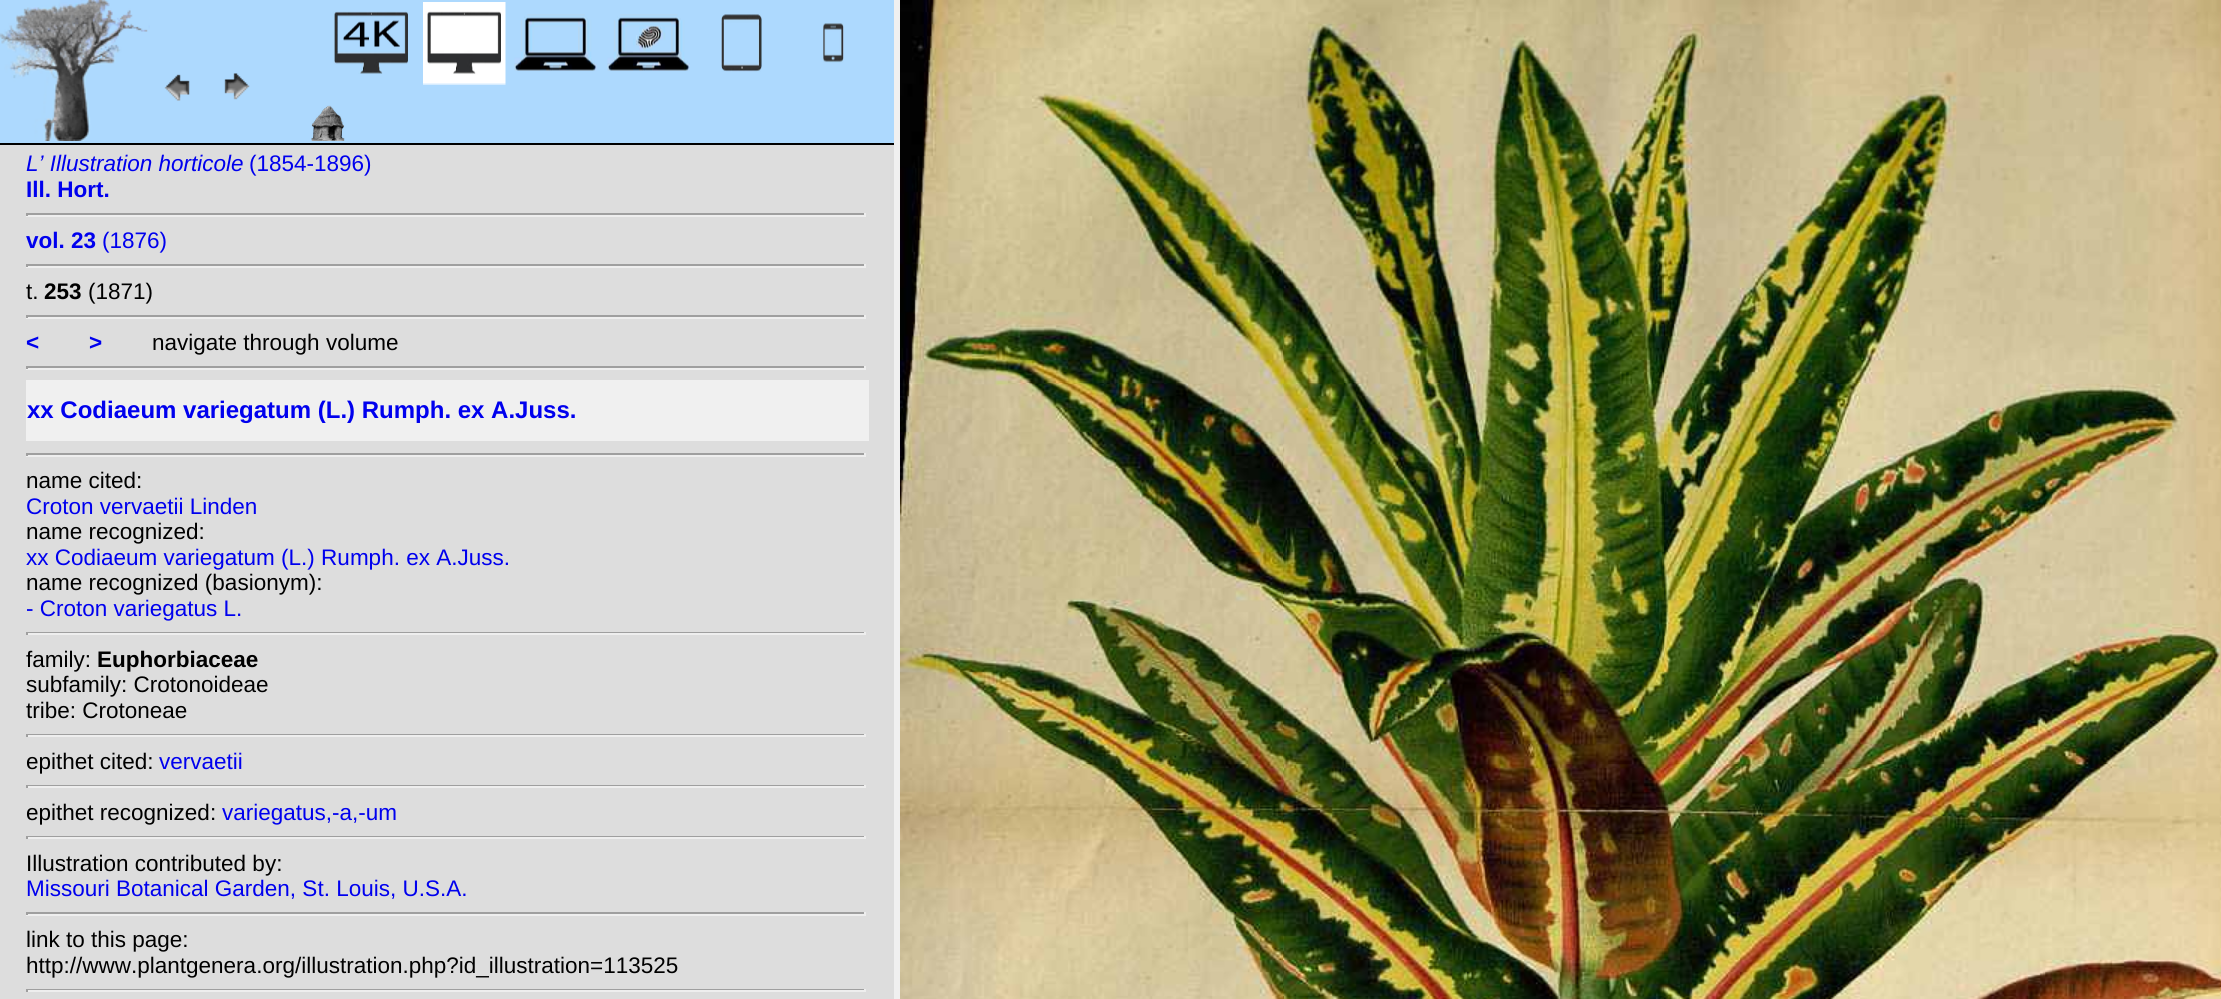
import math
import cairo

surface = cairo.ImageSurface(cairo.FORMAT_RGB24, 2221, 999)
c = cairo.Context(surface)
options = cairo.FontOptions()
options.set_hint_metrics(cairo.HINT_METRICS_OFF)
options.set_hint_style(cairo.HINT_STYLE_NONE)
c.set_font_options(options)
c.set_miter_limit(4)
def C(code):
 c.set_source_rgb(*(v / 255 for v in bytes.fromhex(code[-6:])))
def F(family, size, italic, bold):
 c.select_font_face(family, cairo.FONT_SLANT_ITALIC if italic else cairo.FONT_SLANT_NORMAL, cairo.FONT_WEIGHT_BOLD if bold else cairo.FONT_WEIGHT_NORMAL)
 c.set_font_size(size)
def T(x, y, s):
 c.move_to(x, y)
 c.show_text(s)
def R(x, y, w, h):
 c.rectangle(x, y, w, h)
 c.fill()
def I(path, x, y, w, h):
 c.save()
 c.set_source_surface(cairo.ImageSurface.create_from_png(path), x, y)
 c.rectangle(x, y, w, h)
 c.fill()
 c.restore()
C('f0f0f0')
c.paint()
C('dddddd')
R(0,145,894,854)
C('add9fe')
R(0,0,894,143)
C('000000')
R(0,143,894,2)
I('1.png',0,0,150,141)
I('2.png',164,74,26,27)
I('3.png',224,73,26,27)
I('4.png',333,11,75,63)
I('5.png',423,2,83,83)
I('6.png',514,14,83,57)
I('7.png',607,14,83,57)
I('8.png',721,14,41,58)
I('9.png',823,23,21,40)
I('10.png',311,105,34,36)
F('Liberation Sans',22.5,1,0)
C('0000ee')
T(26,171,'L’ Illustration horticole')
F('Liberation Sans',22.5,0,0)
T(249,171,'(1854-1896)')
F('Liberation Sans',22.5,0,1)
T(26,197,'Ill. Hort.')
C('9f9f9f')
R(26,213,840,2)
C('eeeeee')
R(864,213,2,3)
R(26,215,840,2)
C('9f9f9f')
R(26,213,2,3)
C('0000ee')
T(26,248,'vol. 23')
F('Liberation Sans',22.5,0,0)
T(102,248,'(1876)')
C('9f9f9f')
R(26,264,840,2)
C('eeeeee')
R(864,264,2,3)
R(26,266,840,2)
C('9f9f9f')
R(26,264,2,3)
C('000000')
T(26,299,'t.')
F('Liberation Sans',22.5,0,1)
T(44,299,'253')
F('Liberation Sans',22.5,0,0)
T(88,299,'(1871)')
C('9f9f9f')
R(26,315,840,2)
C('eeeeee')
R(864,315,2,3)
R(26,317,840,2)
C('9f9f9f')
R(26,315,2,3)
F('Liberation Sans',22.5,0,1)
C('0000ee')
T(26,350,'<')
T(89,350,'>')
F('Liberation Sans',22.5,0,0)
C('000000')
T(152,350,'navigate through volume')
C('9f9f9f')
R(26,366,840,2)
C('eeeeee')
R(864,366,2,3)
R(26,368,840,2)
C('9f9f9f')
R(26,366,2,3)
C('f0f0f0')
R(26,380,843,61)
F('Liberation Sans',24,0,1)
C('0000ee')
T(27,418,'xx Codiaeum variegatum (L.) Rumph. ex A.Juss.')
C('9f9f9f')
R(26,453,840,2)
C('eeeeee')
R(864,453,2,3)
R(26,455,840,2)
C('9f9f9f')
R(26,453,2,3)
F('Liberation Sans',22.5,0,0)
C('000000')
T(26,488,'name cited:')
C('0000ee')
T(26,514,'Croton vervaetii Linden')
C('000000')
T(26,539,'name recognized:')
C('0000ee')
T(26,565,'xx Codiaeum variegatum (L.) Rumph. ex A.Juss.')
C('000000')
T(26,590,'name recognized (basionym):')
C('0000ee')
T(26,616,'- Croton variegatus L.')
C('9f9f9f')
R(26,632,840,1)
C('eeeeee')
R(864,632,2,3)
R(26,633,840,2)
C('9f9f9f')
R(26,632,2,3)
C('000000')
T(26,667,'family:')
F('Liberation Sans',22.5,0,1)
T(97,667,'Euphorbiaceae')
F('Liberation Sans',22.5,0,0)
T(26,692,'subfamily: Crotonoideae')
T(26,718,'tribe: Crotoneae')
C('9f9f9f')
R(26,734,840,1)
C('eeeeee')
R(864,734,2,3)
R(26,735,840,2)
C('9f9f9f')
R(26,734,2,3)
C('000000')
T(26,769,'epithet cited:')
C('0000ee')
T(159,769,'vervaetii')
C('9f9f9f')
R(26,785,840,1)
C('eeeeee')
R(864,785,2,3)
R(26,786,840,2)
C('9f9f9f')
R(26,785,2,3)
C('000000')
T(26,820,'epithet recognized:')
C('0000ee')
T(222,820,'variegatus,-a,-um')
C('9f9f9f')
R(26,836,840,1)
C('eeeeee')
R(864,836,2,3)
R(26,837,840,2)
C('9f9f9f')
R(26,836,2,3)
C('000000')
T(26,871,'Illustration contributed by:')
C('0000ee')
T(26,896,'Missouri Botanical Garden, St. Louis, U.S.A.')
C('9f9f9f')
R(26,912,840,2)
C('eeeeee')
R(864,912,2,3)
R(26,914,840,2)
C('9f9f9f')
R(26,912,2,3)
C('000000')
T(26,947,'link to this page:')
T(26,973,'http://www.plantgenera.org/illustration.php?id_illustration=113525')
C('9f9f9f')
R(26,989,840,1)
C('eeeeee')
R(864,989,2,3)
R(26,990,840,2)
C('9f9f9f')
R(26,989,2,3)
I('11.png',900,0,1321,999)
surface.write_to_png('o.png')
